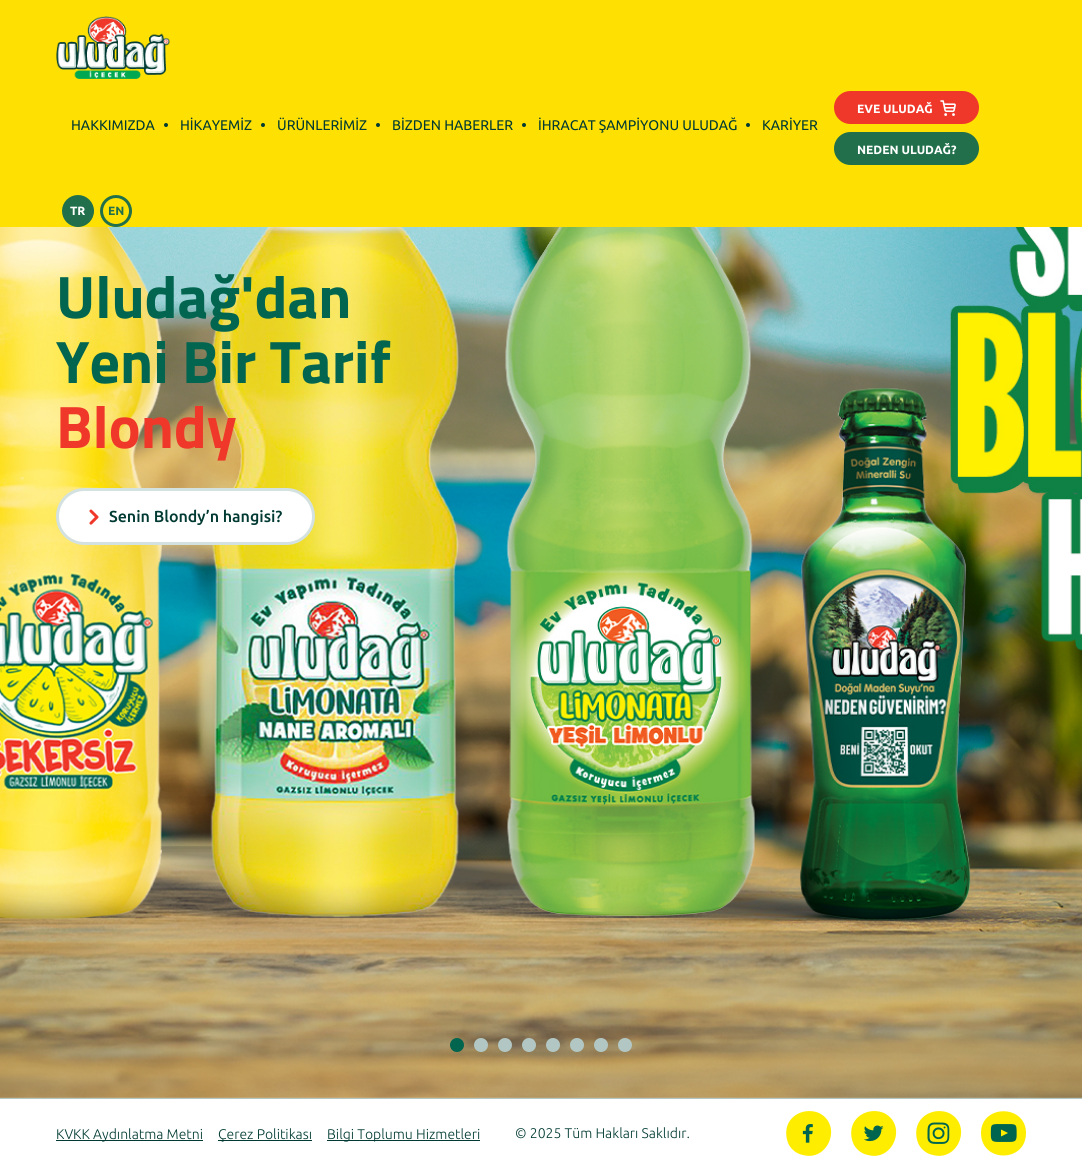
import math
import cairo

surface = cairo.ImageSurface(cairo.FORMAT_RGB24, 1082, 1168)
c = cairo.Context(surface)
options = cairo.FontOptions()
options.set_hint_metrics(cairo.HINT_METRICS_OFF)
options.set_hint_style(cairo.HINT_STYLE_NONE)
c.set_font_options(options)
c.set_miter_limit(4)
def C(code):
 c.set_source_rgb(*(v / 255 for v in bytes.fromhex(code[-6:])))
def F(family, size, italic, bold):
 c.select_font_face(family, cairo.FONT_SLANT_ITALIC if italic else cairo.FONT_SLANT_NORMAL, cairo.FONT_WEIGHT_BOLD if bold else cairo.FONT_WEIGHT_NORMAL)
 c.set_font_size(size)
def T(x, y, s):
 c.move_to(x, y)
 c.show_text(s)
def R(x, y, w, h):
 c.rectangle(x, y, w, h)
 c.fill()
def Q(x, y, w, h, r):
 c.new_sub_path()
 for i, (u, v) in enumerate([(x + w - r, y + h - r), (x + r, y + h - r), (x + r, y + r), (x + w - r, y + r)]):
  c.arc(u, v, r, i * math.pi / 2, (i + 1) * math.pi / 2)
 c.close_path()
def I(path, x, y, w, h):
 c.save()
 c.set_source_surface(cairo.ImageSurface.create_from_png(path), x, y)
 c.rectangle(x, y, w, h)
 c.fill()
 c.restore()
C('ffffff')
c.paint()
C('ffe003')
R(0,0,1082,227)
I('1.png',56,16,114,63)
F('Ubuntu',14,0,0)
C('003a32')
T(71,130,'HAKKIMIZDA')
c.new_path()
c.arc(166,125,2,0,2 * math.pi)
c.fill()
T(180,130,'HİKAYEMİZ')
c.new_path()
c.arc(263,125,2,0,2 * math.pi)
c.fill()
T(277,130,'ÜRÜNLERİMİZ')
c.new_path()
c.arc(378,125,2,0,2 * math.pi)
c.fill()
T(392,130,'BİZDEN HABERLER')
c.new_path()
c.arc(524,125,2,0,2 * math.pi)
c.fill()
T(538,130,'İHRACAT ŞAMPİYONU ULUDAĞ')
c.new_path()
c.arc(748,125,2,0,2 * math.pi)
c.fill()
T(762,130,'KARİYER')
C('ef3829')
Q(834,91,145,33,16.5)
c.fill()
F('Ubuntu',12,0,1)
C('ffffff')
T(857,113,'EVE ULUDAĞ')
I('2.png',940,100,16,16)
C('21704b')
Q(834,132,145,33,16.5)
c.fill()
C('ffffff')
T(857,154,'NEDEN ULUDAĞ?')
C('21704b')
c.new_path()
c.arc(78,211,14.5,0,2 * math.pi)
c.fill_preserve()
c.set_line_width(3)
c.stroke()
C('ffffff')
T(70,215,'TR')
c.new_path()
c.arc(116,211,14.5,0,2 * math.pi)
C('21704b')
c.stroke()
T(108,215,'EN')
I('3.png',0,227,1082,871)
F('Titillium Web',60,0,1)
C('016550')
T(56,318,'Uludağ\'dan')
T(56,383,'Yeni Bir Tarif')
C('ef3829')
T(56,448,'Blondy')
C('ffffff')
Q(57.5,489.5,256,54,27)
c.fill_preserve()
C('d3e1e0')
c.stroke()
I('4.png',89,509,10,16)
F('Ubuntu Medium',16,0,0)
C('003a32')
T(109,522,'Senin Blondy’n hangisi?')
C('00654f')
c.new_path()
c.arc(457,1045,7,0,2 * math.pi)
c.fill()
C('b2c7c3')
c.arc(481,1045,7,0,2 * math.pi)
c.fill()
c.arc(505,1045,7,0,2 * math.pi)
c.fill()
c.arc(529,1045,7,0,2 * math.pi)
c.fill()
c.arc(553,1045,7,0,2 * math.pi)
c.fill()
c.arc(577,1045,7,0,2 * math.pi)
c.fill()
c.arc(601,1045,7,0,2 * math.pi)
c.fill()
c.arc(625,1045,7,0,2 * math.pi)
c.fill()
R(0,1098,1082,1)
C('003a32')
R(56,1140,147,1)
F('Ubuntu Light',14,0,0)
T(56,1139,'KVKK Aydınlatma Metni')
R(218,1140,94,1)
T(218,1139,'Çerez Politikası')
R(327,1140,153,1)
T(327,1139,'Bilgi Toplumu Hizmetleri')
T(515,1138,'© 2025 Tüm Hakları Saklıdır.')
C('ffed00')
c.new_path()
c.move_to(819,1113)
c.curve_to(843,1125,828,1162,803,1155)
c.curve_to(797,1154,792,1150,789,1145)
c.curve_to(786,1139,785,1131,788,1124)
c.curve_to(793,1113,807,1108,819,1113)
c.close_path()
c.fill()
I('5.png',802,1124,11,19)
c.new_path()
c.move_to(884,1113)
c.curve_to(908,1125,893,1162,868,1155)
c.curve_to(862,1154,857,1150,854,1145)
c.curve_to(851,1139,850,1131,853,1124)
c.curve_to(858,1113,872,1108,884,1113)
c.close_path()
c.fill()
I('6.png',863,1125,21,17)
c.new_path()
c.move_to(949,1113)
c.curve_to(973,1125,958,1162,933,1155)
c.curve_to(927,1154,922,1150,919,1145)
c.curve_to(916,1139,915,1131,918,1124)
c.curve_to(923,1113,937,1108,949,1113)
c.close_path()
c.fill()
I('7.png',927,1122,23,22)
c.new_path()
c.move_to(1026,1133)
c.curve_to(1026,1163,981,1163,981,1133)
c.curve_to(981,1104,1026,1104,1026,1133)
c.close_path()
c.fill()
I('8.png',990,1124,27,18)
c.new_path()
c.move_to(1001,1129.5)
c.line_to(1008,1133)
c.line_to(1001,1136.5)
c.close_path()
c.fill()
surface.write_to_png('o.png')
